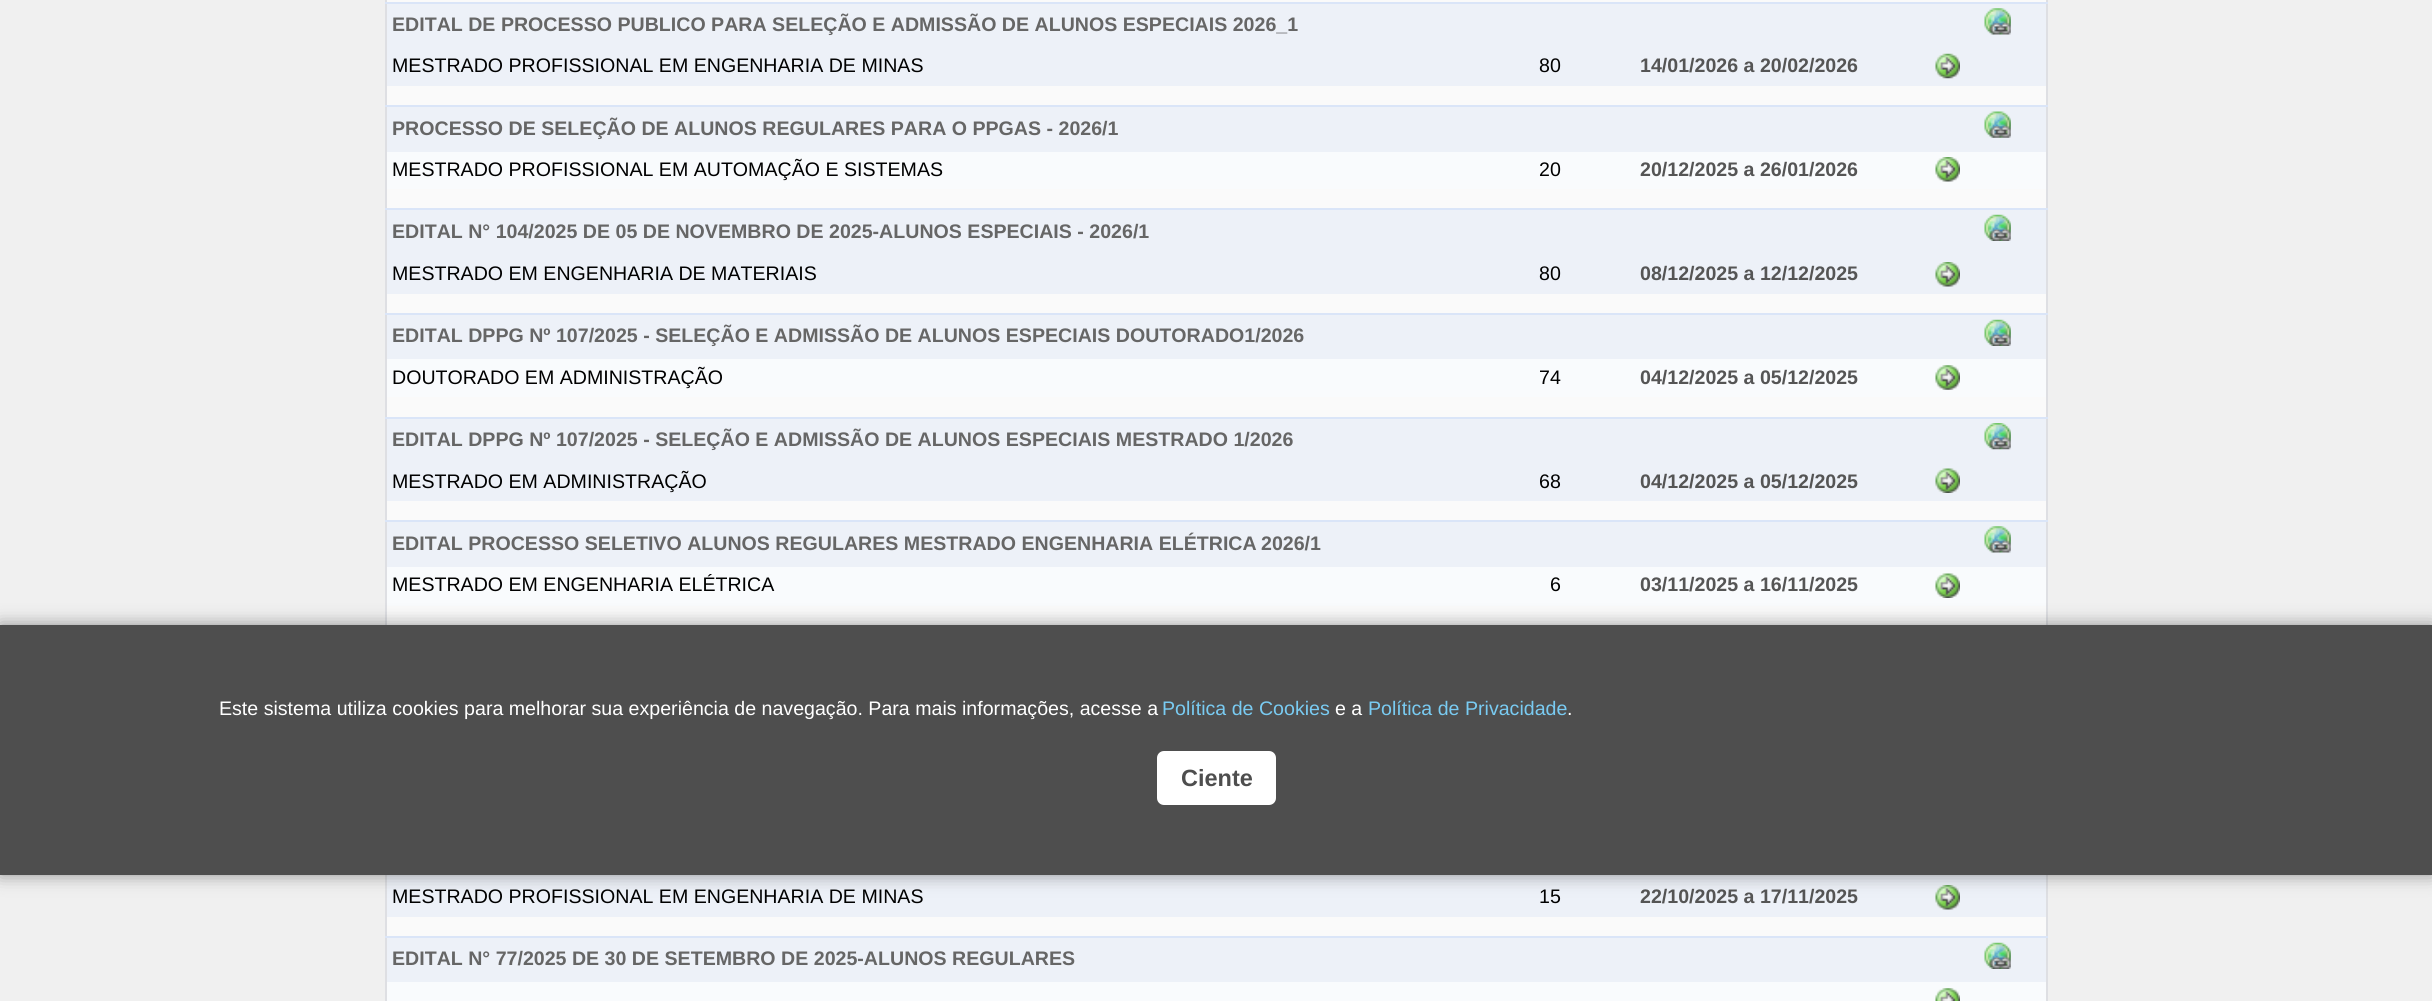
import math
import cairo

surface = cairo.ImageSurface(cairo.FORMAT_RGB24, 2432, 1001)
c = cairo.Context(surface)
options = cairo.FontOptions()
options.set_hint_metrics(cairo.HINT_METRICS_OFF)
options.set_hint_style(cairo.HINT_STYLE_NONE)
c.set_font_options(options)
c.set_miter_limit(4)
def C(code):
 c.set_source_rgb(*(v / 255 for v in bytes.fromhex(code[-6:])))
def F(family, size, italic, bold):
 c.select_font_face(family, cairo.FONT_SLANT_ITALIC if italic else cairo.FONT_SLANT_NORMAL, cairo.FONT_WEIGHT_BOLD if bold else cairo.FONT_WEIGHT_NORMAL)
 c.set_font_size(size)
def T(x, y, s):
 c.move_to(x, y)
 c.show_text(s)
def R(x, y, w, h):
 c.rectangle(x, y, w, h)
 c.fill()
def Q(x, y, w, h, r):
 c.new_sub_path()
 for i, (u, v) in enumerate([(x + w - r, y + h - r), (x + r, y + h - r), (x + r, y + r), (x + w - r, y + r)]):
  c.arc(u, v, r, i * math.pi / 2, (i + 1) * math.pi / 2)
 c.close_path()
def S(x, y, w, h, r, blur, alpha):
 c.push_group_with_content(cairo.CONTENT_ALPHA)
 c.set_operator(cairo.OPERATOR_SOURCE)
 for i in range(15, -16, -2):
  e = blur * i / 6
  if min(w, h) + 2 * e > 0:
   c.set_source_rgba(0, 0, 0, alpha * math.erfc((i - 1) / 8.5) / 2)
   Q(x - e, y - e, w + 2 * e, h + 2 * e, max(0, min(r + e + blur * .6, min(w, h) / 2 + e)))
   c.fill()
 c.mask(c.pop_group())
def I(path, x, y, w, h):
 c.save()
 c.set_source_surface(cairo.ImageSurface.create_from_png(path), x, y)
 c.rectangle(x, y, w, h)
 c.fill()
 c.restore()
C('f0f0f0')
c.paint()
C('dedfe3')
R(2046,0,2,1001)
R(385,0,2,1001)
C('fafafa')
R(387,0,1659,936)
C('dae5f8')
R(385,2,1663,2)
C('edf1f8')
R(387,4,1659,82)
I('1.png',1984,8,27,27)
F('Liberation Sans',19.6,0,1)
C('666666')
T(392,31,'EDITAL DE PROCESSO PUBLICO PARA SELEÇÃO E ADMISSÃO DE ALUNOS ESPECIAIS 2026_1')
F('Liberation Sans',19.6,0,0)
C('000000')
T(392,72,'MESTRADO PROFISSIONAL EM ENGENHARIA DE MINAS')
T(1539,72,'80')
F('Liberation Sans',19.6,0,1)
C('555555')
T(1640,72,'14/01/2026 a 20/02/2026')
I('2.png',1935,53,25,26)
C('dae5f8')
R(385,105,1663,2)
C('edf1f8')
R(387,107,1659,45)
I('3.png',1984,111,27,27)
C('666666')
T(392,135,'PROCESSO DE SELEÇÃO DE ALUNOS REGULARES PARA O PPGAS - 2026/1')
C('f9fbfd')
R(387,152,1659,37)
F('Liberation Sans',19.6,0,0)
C('000000')
T(392,176,'MESTRADO PROFISSIONAL EM AUTOMAÇÃO E SISTEMAS')
T(1539,176,'20')
F('Liberation Sans',19.6,0,1)
C('555555')
T(1640,176,'20/12/2025 a 26/01/2026')
I('4.png',1935,157,25,25)
C('dae5f8')
R(385,208,1663,2)
C('edf1f8')
R(387,210,1659,84)
I('5.png',1984,214,27,27)
C('666666')
T(392,238,'EDITAL N° 104/2025 DE 05 DE NOVEMBRO DE 2025-ALUNOS ESPECIAIS - 2026/1')
F('Liberation Sans',19.6,0,0)
C('000000')
T(392,280,'MESTRADO EM ENGENHARIA DE MATERIAIS')
T(1539,280,'80')
F('Liberation Sans',19.6,0,1)
C('555555')
T(1640,280,'08/12/2025 a 12/12/2025')
I('6.png',1935,262,25,25)
C('dae5f8')
R(385,313,1663,2)
C('edf1f8')
R(387,315,1659,44)
I('5.png',1984,319,27,27)
C('666666')
T(392,342,'EDITAL DPPG Nº 107/2025 - SELEÇÃO E ADMISSÃO DE ALUNOS ESPECIAIS DOUTORADO1/2026')
C('f9fbfd')
R(387,359,1659,38)
F('Liberation Sans',19.6,0,0)
C('000000')
T(392,384,'DOUTORADO EM ADMINISTRAÇÃO')
T(1539,384,'74')
F('Liberation Sans',19.6,0,1)
C('555555')
T(1640,384,'04/12/2025 a 05/12/2025')
I('7.png',1935,365,25,25)
C('dae5f8')
R(385,417,1663,2)
C('edf1f8')
R(387,419,1659,82)
I('8.png',1984,423,27,27)
C('666666')
T(392,446,'EDITAL DPPG Nº 107/2025 - SELEÇÃO E ADMISSÃO DE ALUNOS ESPECIAIS MESTRADO 1/2026')
F('Liberation Sans',19.6,0,0)
C('000000')
T(392,488,'MESTRADO EM ADMINISTRAÇÃO')
T(1539,488,'68')
F('Liberation Sans',19.6,0,1)
C('555555')
T(1640,488,'04/12/2025 a 05/12/2025')
I('9.png',1935,468,25,25)
C('dae5f8')
R(385,520,1663,2)
C('edf1f8')
R(387,522,1659,45)
I('1.png',1984,526,27,27)
C('666666')
T(392,550,'EDITAL PROCESSO SELETIVO ALUNOS REGULARES MESTRADO ENGENHARIA ELÉTRICA')
T(1261,550,'2026/1')
C('f9fbfd')
R(387,567,1659,39)
F('Liberation Sans',19.6,0,0)
C('000000')
T(392,591,'MESTRADO EM ENGENHARIA ELÉTRICA')
T(1550,591,'6')
F('Liberation Sans',19.6,0,1)
C('555555')
T(1640,591,'03/11/2025 a 16/11/2025')
I('10.png',1935,573,25,25)
C('edf1f8')
R(387,875,1659,42)
F('Liberation Sans',19.6,0,0)
C('000000')
T(392,903,'MESTRADO PROFISSIONAL EM ENGENHARIA DE MINAS')
T(1539,903,'15')
F('Liberation Sans',19.6,0,1)
C('555555')
T(1640,903,'22/10/2025 a 17/11/2025')
I('11.png',1935,885,25,25)
C('dae5f8')
R(385,936,1663,2)
C('edf1f8')
R(387,938,1659,44)
I('5.png',1984,942,27,27)
C('666666')
T(392,965,'EDITAL N° 77/2025 DE 30 DE SETEMBRO DE 2025-ALUNOS REGULARES')
C('f9fbfd')
R(387,982,1659,19)
I('12.png',1935,988,25,13)
C('000000')
S(0,625,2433,250,0,9,.4)
C('4e4e4e')
R(0,625,2432,250)
F('Liberation Sans',19.6,0,0)
C('ffffff')
T(219,715,'Este sistema utiliza cookies para melhorar sua experiência de navegação. Para mais informações, acesse a')
C('79cbf2')
T(1162,715,'Política de Cookies')
C('ffffff')
T(1335,715,'e a')
C('79cbf2')
T(1368,715,'Política de Privacidade')
C('ffffff')
T(1567,715,'.')
Q(1157,751,119,54,7)
c.fill()
F('Liberation Sans',23.5,0,1)
C('4e4e4e')
T(1181,786,'Ciente')
surface.write_to_png('o.png')
